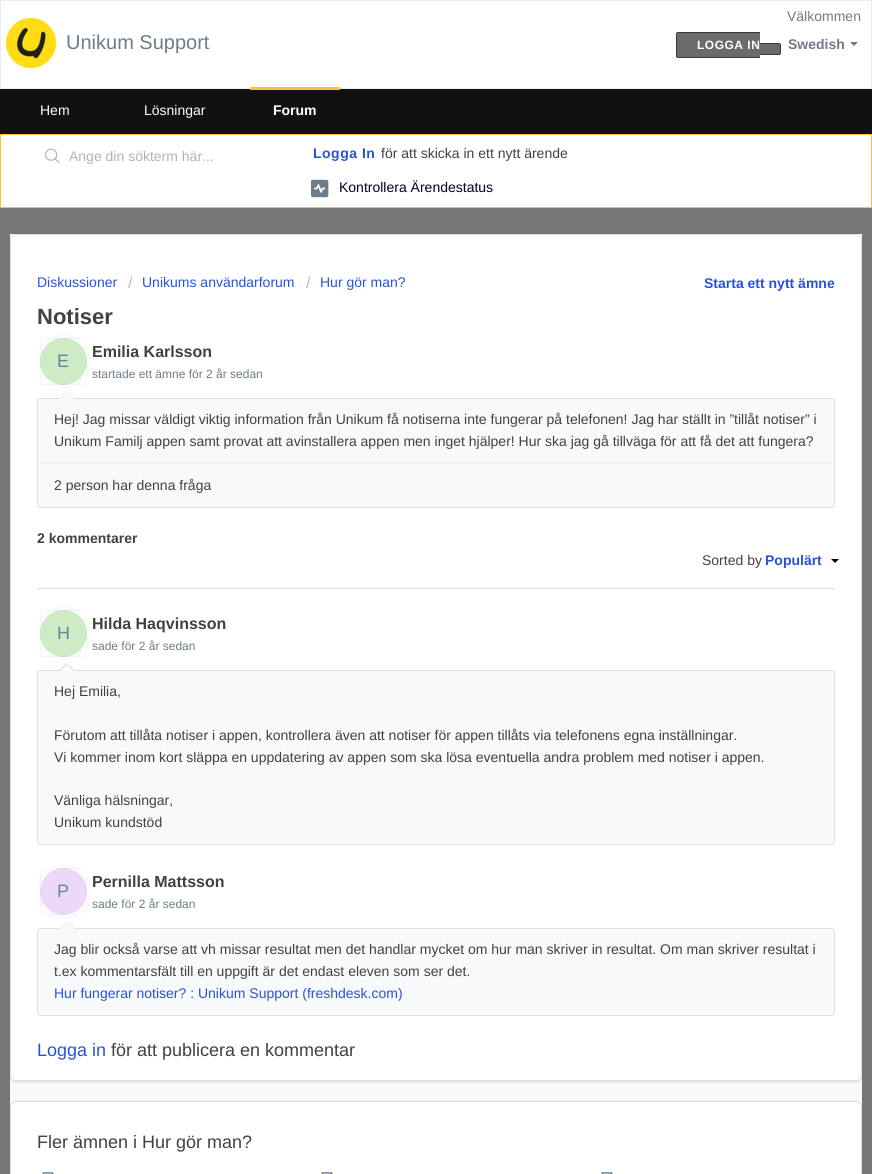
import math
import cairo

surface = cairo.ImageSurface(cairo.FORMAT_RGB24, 872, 1174)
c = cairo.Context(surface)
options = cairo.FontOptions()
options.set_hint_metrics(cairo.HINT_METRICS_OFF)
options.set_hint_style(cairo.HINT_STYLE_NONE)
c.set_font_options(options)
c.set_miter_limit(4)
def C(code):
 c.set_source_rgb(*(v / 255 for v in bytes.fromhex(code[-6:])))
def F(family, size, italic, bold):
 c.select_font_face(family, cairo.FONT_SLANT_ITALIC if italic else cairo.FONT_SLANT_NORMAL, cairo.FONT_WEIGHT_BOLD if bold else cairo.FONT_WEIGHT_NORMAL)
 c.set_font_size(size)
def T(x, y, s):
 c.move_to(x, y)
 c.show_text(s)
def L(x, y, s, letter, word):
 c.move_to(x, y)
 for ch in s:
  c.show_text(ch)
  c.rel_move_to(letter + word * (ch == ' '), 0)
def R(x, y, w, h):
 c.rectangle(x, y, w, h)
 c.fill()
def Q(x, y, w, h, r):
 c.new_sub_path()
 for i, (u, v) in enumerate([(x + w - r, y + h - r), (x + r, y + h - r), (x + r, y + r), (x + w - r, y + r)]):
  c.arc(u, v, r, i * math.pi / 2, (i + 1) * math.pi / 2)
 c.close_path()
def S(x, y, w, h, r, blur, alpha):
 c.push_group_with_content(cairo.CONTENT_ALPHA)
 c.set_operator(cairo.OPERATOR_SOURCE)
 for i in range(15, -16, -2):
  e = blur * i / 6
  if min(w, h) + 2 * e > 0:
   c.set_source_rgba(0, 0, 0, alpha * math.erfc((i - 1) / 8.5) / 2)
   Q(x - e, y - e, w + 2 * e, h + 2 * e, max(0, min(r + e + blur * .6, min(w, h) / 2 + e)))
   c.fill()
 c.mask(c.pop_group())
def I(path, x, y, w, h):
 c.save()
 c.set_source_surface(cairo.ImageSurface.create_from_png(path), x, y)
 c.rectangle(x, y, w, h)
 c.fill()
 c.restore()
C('777777')
c.paint()
C('ffffff')
c.rectangle(.5,.5,871,88)
c.fill_preserve()
C('ebeef0')
c.set_line_width(1)
c.stroke()
I('1.png',6,18,50,50)
F('Liberation Sans',20,0,0)
C('6f7c87')
T(66,49,'Unikum Support')
F('Liberation Sans',14,0,0)
T(787,21,'Välkommen')
C('6c6a6a')
c.new_path()
c.move_to(678,32)
c.line_to(760,32)
c.line_to(760,58)
c.line_to(678,58)
c.curve_to(677,58,676,57,676,56)
c.line_to(676,34)
c.curve_to(676,33,677,32,678,32)
c.close_path()
c.fill()
F('Liberation Sans',12,0,1)
C('ffffff')
L(697,49,'LOGGA IN',.5,0)
C('393737')
R(677,32,83,1)
R(677,57,83,1)
R(676,33,1,24)
C('6c6a6a')
c.new_path()
c.move_to(760,43)
c.line_to(779,43)
c.curve_to(780,43,781,44,781,45)
c.line_to(781,53)
c.curve_to(781,54,780,55,779,55)
c.line_to(760,55)
c.close_path()
c.fill()
C('393737')
R(760,43,20,1)
R(780,44,1,10)
R(760,54,20,1)
F('Liberation Sans',14,0,1)
C('6f7c87')
T(788,49,'Swedish')
c.new_path()
c.move_to(850,42)
c.line_to(858,42)
c.line_to(854,46)
c.close_path()
c.fill()
C('111111')
R(0,89,872,45)
F('Liberation Sans',14,0,0)
C('ffffff')
T(40,115,'Hem')
T(144,115,'Lösningar')
C('febf43')
R(250,87,90,3)
F('Liberation Sans',14,0,1)
C('ffffff')
T(273,115,'Forum')
c.rectangle(.5,134.5,871,73)
c.fill_preserve()
C('febf43')
c.stroke()
I('2.png',45,148,15,15)
F('Liberation Sans',14,0,0)
C('b2b2b2')
T(69,161,'Ange din sökterm här...')
F('Liberation Sans',14,0,1)
C('2753d7')
L(313,158,'Logga In',.5,0)
F('Liberation Sans',14,0,0)
C('414141')
T(381,158,'för att skicka in ett nytt ärende')
I('3.png',311,179,18,19)
C('040026')
T(339,192,'Kontrollera Ärendestatus')
C('f8f9fa')
R(10,234,852,873)
C('3f3f44')
S(10,235,852,847,6,1,.15)
C('ffffff')
Q(10.5,234.5,851,846,5.5)
c.fill_preserve()
C('dadfe3')
c.stroke()
C('2753d7')
T(37,287,'Diskussioner')
F('Liberation Sans',16,0,0)
C('bbbbbb')
T(128,288,'/')
F('Liberation Sans',14,0,0)
C('2753d7')
T(142,287,'Unikums användarforum')
F('Liberation Sans',16,0,0)
C('bbbbbb')
T(306,288,'/')
F('Liberation Sans',14,0,0)
C('2753d7')
T(320,287,'Hur gör man?')
F('Liberation Sans',14,0,1)
T(704,288,'Starta ett nytt ämne')
F('Liberation Sans',22,0,1)
C('414141')
T(37,324,'Notiser')
c.new_path()
c.arc(63.5,361.5,26,0,2 * math.pi)
C('f3f5f7')
c.stroke()
C('cdebc4')
c.arc(63.5,361.5,23.5,0,2 * math.pi)
c.fill()
c.rectangle(40.5,338.5,46,46)
c.set_source_rgba(0,0,0,0.04)
c.stroke()
F('Liberation Sans',18,0,0)
C('638699')
T(57,367,'E')
C('f8f9fa')
Q(37.5,398.5,797,109,3.5)
c.fill_preserve()
C('dadfe3')
c.stroke()
C('ebebeb')
c.new_path()
c.move_to(75,399)
c.line_to(59,399)
c.line_to(67,391)
c.close_path()
c.fill()
C('fafafa')
c.new_path()
c.move_to(74,399)
c.line_to(60,399)
c.line_to(67,392)
c.close_path()
c.fill()
F('Liberation Sans',16,0,1)
C('414141')
T(92,357,'Emilia Karlsson')
F('Liberation Sans',12,0,0)
C('6f7c87')
T(92,378,'startade ett ämne för 2 år sedan')
F('Liberation Sans',14,0,0)
C('414141')
T(54,424,'Hej! Jag missar väldigt viktig information från Unikum få notiserna inte fungerar på telefonen! Jag har ställt in ”tillåt notiser” i')
T(54,446,'Unikum Familj appen samt provat att avinstallera appen men inget hjälper! Hur ska jag gå tillväga för att få det att fungera?')
C('efefef')
R(40,463,792,1)
C('ffffff')
R(40,464,792,1)
C('414141')
T(54,490,'2 person har denna fråga')
F('Liberation Sans',14,0,1)
T(37,543,'2 kommentarer')
F('Liberation Sans',14,0,0)
T(702,565,'Sorted by')
F('Liberation Sans',14,0,1)
C('2753d7')
T(765,565,'Populärt')
C('000000')
c.new_path()
c.move_to(831,559)
c.line_to(839,559)
c.line_to(835,563)
c.close_path()
c.fill()
C('dcdcdc')
R(37,588,798,1)
c.arc(63.5,633.5,26,0,2 * math.pi)
C('f3f5f7')
c.stroke()
C('cdebc4')
c.arc(63.5,633.5,23.5,0,2 * math.pi)
c.fill()
c.rectangle(40.5,610.5,46,46)
c.set_source_rgba(0,0,0,0.04)
c.stroke()
F('Liberation Sans',18,0,0)
C('638699')
T(57,639,'H')
C('f8f9fa')
Q(37.5,670.5,797,174,3.5)
c.fill_preserve()
C('dadfe3')
c.stroke()
C('cccccc')
c.new_path()
c.move_to(75,671)
c.line_to(59,671)
c.line_to(67,663)
c.close_path()
c.fill()
C('fffdf8')
c.new_path()
c.move_to(74,671)
c.line_to(60,671)
c.line_to(67,664)
c.close_path()
c.fill()
F('Liberation Sans',16,0,1)
C('414141')
T(92,629,'Hilda Haqvinsson')
F('Liberation Sans',12,0,0)
C('6f7c87')
T(92,650,'sade för 2 år sedan')
F('Liberation Sans',14,0,0)
C('414141')
T(54,696,'Hej Emilia,')
T(54,740,'Förutom att tillåta notiser i appen, kontrollera även att notiser för appen tillåts via telefonens egna inställningar.')
T(54,762,'Vi kommer inom kort släppa en uppdatering av appen som ska lösa eventuella andra problem med notiser i appen.')
T(54,805,'Vänliga hälsningar,')
T(54,827,'Unikum kundstöd')
c.new_path()
c.arc(63.5,891.5,26,0,2 * math.pi)
C('f3f5f7')
c.stroke()
C('eed8f7')
c.arc(63.5,891.5,23.5,0,2 * math.pi)
c.fill()
c.rectangle(40.5,868.5,46,46)
c.set_source_rgba(0,0,0,0.04)
c.stroke()
F('Liberation Sans',18,0,0)
C('638699')
T(57,897,'P')
C('f8f9fa')
Q(37.5,928.5,797,87,3.5)
c.fill_preserve()
C('dadfe3')
c.stroke()
C('ebebeb')
c.new_path()
c.move_to(75,929)
c.line_to(59,929)
c.line_to(67,921)
c.close_path()
c.fill()
C('fafafa')
c.new_path()
c.move_to(74,929)
c.line_to(60,929)
c.line_to(67,922)
c.close_path()
c.fill()
F('Liberation Sans',16,0,1)
C('414141')
T(92,887,'Pernilla Mattsson')
F('Liberation Sans',12,0,0)
C('6f7c87')
T(92,908,'sade för 2 år sedan')
F('Liberation Sans',14,0,0)
C('414141')
T(54,954,'Jag blir också varse att vh missar resultat men det handlar mycket om hur man skriver in resultat. Om man skriver resultat i')
T(54,976,'t.ex kommentarsfält till en uppgift är det endast eleven som ser det.')
C('2753d7')
T(54,998,'Hur fungerar notiser? : Unikum Support (freshdesk.com)')
F('Liberation Sans',18,0,0)
T(37,1056,'Logga in')
C('414141')
T(111,1056,'för att publicera en kommentar')
C('3f3f44')
S(10,1102,852,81,6,1,.15)
C('ffffff')
Q(10.5,1101.5,851,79,5.5)
c.fill_preserve()
C('dadfe3')
c.stroke()
C('414141')
T(37,1148,'Fler ämnen i Hur gör man?')
I('4.png',42,1172,12,2)
I('4.png',321,1172,12,2)
I('4.png',601,1172,12,2)
surface.write_to_png('o.png')
